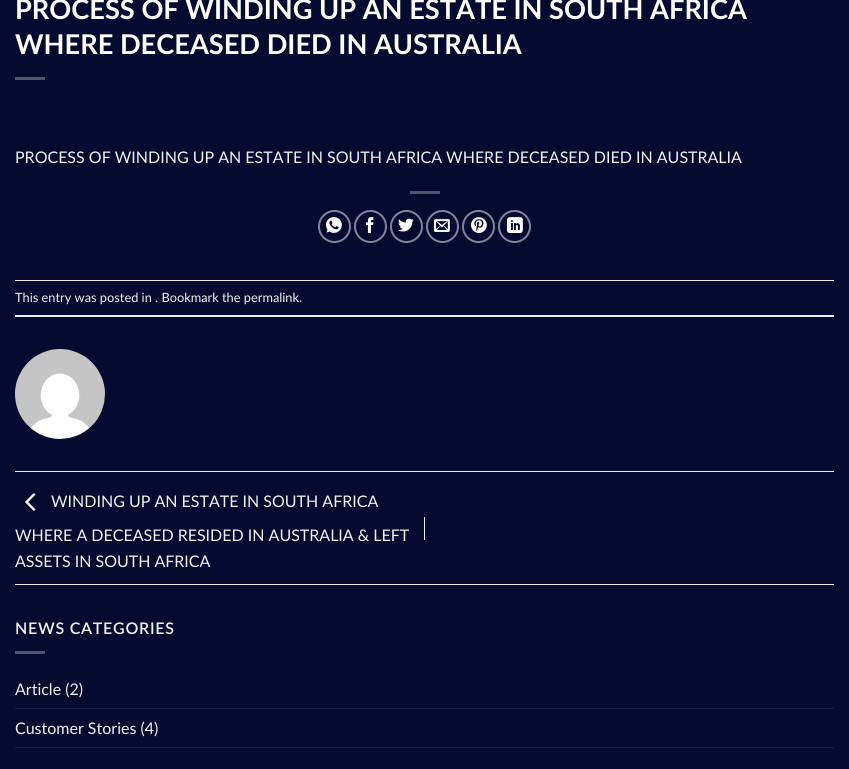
import math
import cairo

surface = cairo.ImageSurface(cairo.FORMAT_RGB24, 849, 769)
c = cairo.Context(surface)
options = cairo.FontOptions()
options.set_hint_metrics(cairo.HINT_METRICS_OFF)
options.set_hint_style(cairo.HINT_STYLE_NONE)
c.set_font_options(options)
c.set_miter_limit(4)
def C(code):
 c.set_source_rgb(*(v / 255 for v in bytes.fromhex(code[-6:])))
def F(family, size, italic, bold):
 c.select_font_face(family, cairo.FONT_SLANT_ITALIC if italic else cairo.FONT_SLANT_NORMAL, cairo.FONT_WEIGHT_BOLD if bold else cairo.FONT_WEIGHT_NORMAL)
 c.set_font_size(size)
def T(x, y, s):
 c.move_to(x, y)
 c.show_text(s)
def L(x, y, s, letter, word):
 c.move_to(x, y)
 for ch in s:
  c.show_text(ch)
  c.rel_move_to(letter + word * (ch == ' '), 0)
def R(x, y, w, h):
 c.rectangle(x, y, w, h)
 c.fill()
def I(path, x, y, w, h):
 c.save()
 c.set_source_surface(cairo.ImageSurface.create_from_png(path), x, y)
 c.rectangle(x, y, w, h)
 c.fill()
 c.restore()
C('050a30')
c.paint()
F('Lato',27.2,0,1)
C('ffffff')
T(15,19,'PROCESS OF WINDING UP AN ESTATE IN SOUTH AFRICA')
T(15,54,'WHERE DECEASED DIED IN AUSTRALIA')
C('50546e')
R(15,77,30,3)
F('Lato',16,0,0)
C('f1f1f1')
T(15,163,'PROCESS OF WINDING UP AN ESTATE IN SOUTH AFRICA WHERE DECEASED DIED IN AUSTRALIA')
C('50546e')
R(410,191,30,3)
c.new_path()
c.arc(334.5,226.5,15.5,0,2 * math.pi)
C('828598')
c.stroke()
I('1.png',326,217,16,16)
c.arc(370.5,226.5,15.5,0,2 * math.pi)
c.stroke()
I('2.png',365,217,9,16)
c.arc(406.5,226.5,15.5,0,2 * math.pi)
c.stroke()
I('3.png',398,218,16,14)
c.arc(442.5,226.5,15.5,0,2 * math.pi)
c.stroke()
I('4.png',434,219,16,13)
c.arc(478.5,226.5,15.5,0,2 * math.pi)
c.stroke()
I('5.png',471,217,16,16)
c.arc(514.5,226.5,15.5,0,2 * math.pi)
c.stroke()
I('6.png',507,217,16,16)
C('ececec')
R(15,280,819,1)
R(15,315,819,2)
F('Lato',12.8,0,0)
C('f1f1f1')
T(15,302,'This entry was posted in . Bookmark the permalink.')
I('7.png',15,349,90,90)
C('ececec')
R(15,471,819,1)
R(15,584,819,1)
I('8.png',25,493,11,18)
F('Lato',16,0,0)
C('f1f1f1')
T(51,507,'WINDING UP AN ESTATE IN SOUTH AFRICA')
T(15,541,'WHERE A DECEASED RESIDED IN AUSTRALIA & LEFT')
T(15,567,'ASSETS IN SOUTH AFRICA')
C('ececec')
R(424,517,1,23)
F('Lato SemiBold',16,0,0)
C('f1f1f1')
L(15,634,'NEWS CATEGORIES',.75,0)
C('50546e')
R(15,651,30,3)
F('Lato',16,0,0)
C('f1f1f1')
T(15,695,'Article (2)')
C('191e41')
R(15,708,819,1)
C('f1f1f1')
T(15,734,'Customer Stories (4)')
C('191e41')
R(15,747,819,1)
surface.write_to_png('o.png')
